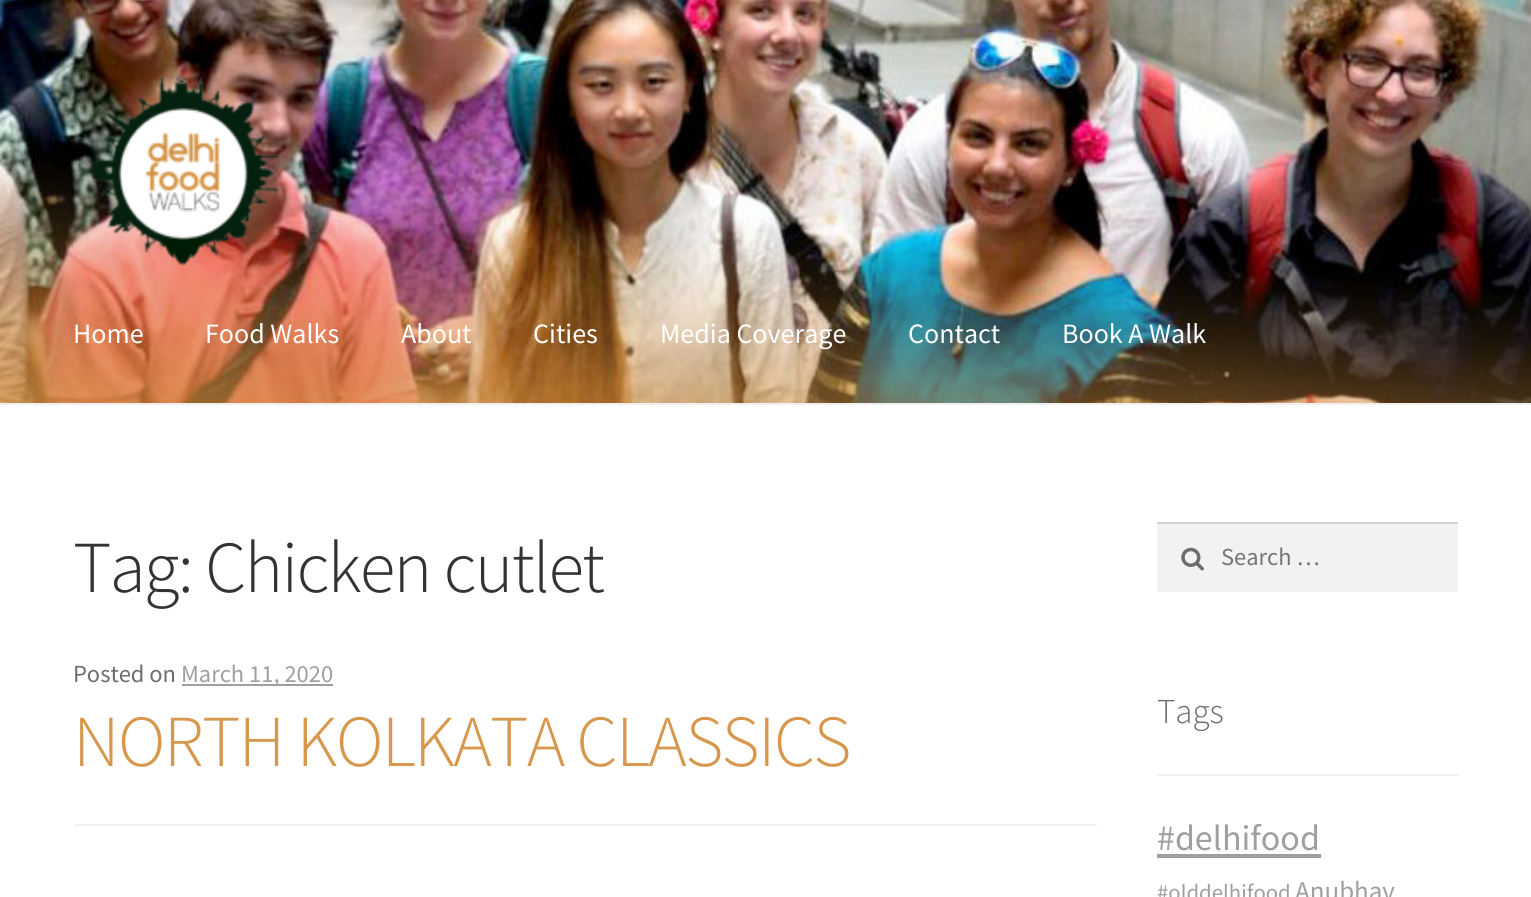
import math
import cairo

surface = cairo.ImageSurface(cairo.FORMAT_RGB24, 1531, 897)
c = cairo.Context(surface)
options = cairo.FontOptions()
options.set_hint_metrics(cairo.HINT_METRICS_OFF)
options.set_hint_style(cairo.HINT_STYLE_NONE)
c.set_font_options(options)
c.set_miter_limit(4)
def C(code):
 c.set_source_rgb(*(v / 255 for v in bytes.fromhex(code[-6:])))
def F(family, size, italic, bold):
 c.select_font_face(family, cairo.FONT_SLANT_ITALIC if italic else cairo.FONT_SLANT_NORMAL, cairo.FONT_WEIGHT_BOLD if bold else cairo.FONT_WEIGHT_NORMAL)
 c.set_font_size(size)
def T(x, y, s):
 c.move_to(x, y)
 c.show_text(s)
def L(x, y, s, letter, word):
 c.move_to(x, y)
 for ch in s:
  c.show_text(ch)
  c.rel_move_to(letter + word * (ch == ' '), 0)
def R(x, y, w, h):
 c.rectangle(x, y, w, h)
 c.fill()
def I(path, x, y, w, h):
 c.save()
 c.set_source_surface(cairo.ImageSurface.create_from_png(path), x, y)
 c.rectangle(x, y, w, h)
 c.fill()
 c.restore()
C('ffffff')
c.paint()
I('1.png',0,0,1531,403)
C('f0f0f0')
R(0,403,1531,2)
I('2.png',90,74,191,192)
F('Source Sans Pro',28,0,0)
C('ffffff')
T(73,343,'Home')
T(205,343,'Food Walks')
T(401,343,'About')
T(533,343,'Cities')
T(660,343,'Media Coverage')
T(908,343,'Contact')
T(1062,343,'Book A Walk')
F('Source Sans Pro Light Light',73.25,0,0)
C('333333')
L(73,592,'Tag: Chicken cutlet',-1.75,0)
C('f2f2f2')
R(74,824,1023,2)
F('Source Sans Pro',24.5,0,0)
C('6d6d6d')
T(73,682,'Posted on')
C('9f9f9f')
R(182,684,151,2)
T(181,682,'March 11, 2020')
F('Source Sans Pro Light Light',73.25,0,0)
C('d7984d')
L(73,766,'NORTH KOLKATA CLASSICS',-1.75,0)
C('f2f2f2')
R(1157,524,301,68)
I('3.png',1181,547,23,24)
C('d4d4d4')
R(1157,522,301,2)
F('Source Sans Pro',24.5,0,0)
C('757575')
T(1221,565,'Search …')
C('f2f2f2')
R(1157,774,301,2)
F('Source Sans Pro Light Light',35,0,0)
C('6d6d6d')
T(1157,723,'Tags')
F('Source Sans Pro',36,0,0)
C('9f9f9f')
T(1157,850,'#delhifood')
R(1157,854,164,4)
F('Source Sans Pro',22.75,0,0)
T(1157,900,'#olddelhifood')
F('Source Sans Pro',27,0,0)
T(1295,900,'Anubhav')
surface.write_to_png('o.png')
